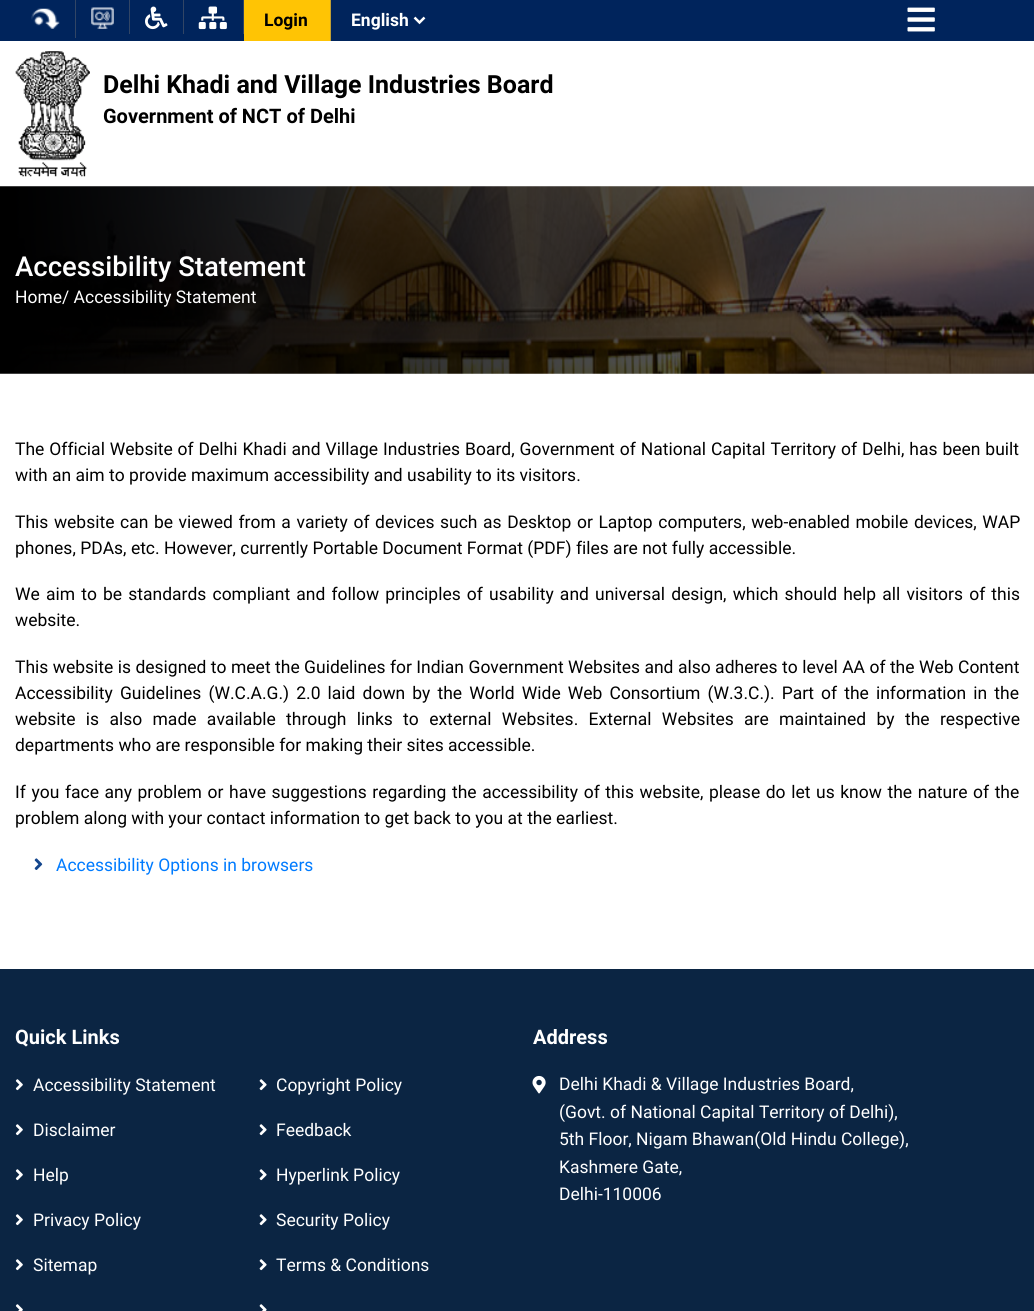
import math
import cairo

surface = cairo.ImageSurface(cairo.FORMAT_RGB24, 1034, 1311)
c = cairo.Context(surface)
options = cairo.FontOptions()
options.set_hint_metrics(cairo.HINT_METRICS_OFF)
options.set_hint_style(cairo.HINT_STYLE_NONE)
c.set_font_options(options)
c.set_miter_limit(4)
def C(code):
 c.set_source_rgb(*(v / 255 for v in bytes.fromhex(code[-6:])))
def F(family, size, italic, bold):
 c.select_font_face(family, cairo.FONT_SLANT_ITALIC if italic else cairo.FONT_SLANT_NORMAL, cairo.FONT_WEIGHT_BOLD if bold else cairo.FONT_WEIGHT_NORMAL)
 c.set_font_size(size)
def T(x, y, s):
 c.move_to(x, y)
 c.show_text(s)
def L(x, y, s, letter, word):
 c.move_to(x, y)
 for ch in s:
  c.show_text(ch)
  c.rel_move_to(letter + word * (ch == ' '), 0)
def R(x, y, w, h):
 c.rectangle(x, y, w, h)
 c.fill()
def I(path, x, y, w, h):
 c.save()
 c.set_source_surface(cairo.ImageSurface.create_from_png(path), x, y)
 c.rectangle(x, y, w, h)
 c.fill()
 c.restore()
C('ffffff')
c.paint()
C('00245c')
R(0,0,1034,41)
C('314565')
R(75,0,1,38)
I('1.png',31,8,29,21)
R(129,0,1,34)
I('2.png',91,7,23,22)
R(183,0,1,34)
I('3.png',145,6,23,24)
R(243,0,1,34)
I('4.png',198,6,29,24)
C('ffc404')
R(244,0,86,41)
C('c09f34')
R(330,0,1,41)
F('Roboto',17.5,0,1)
C('000000')
T(264,26,'Login')
c.new_path()
c.move_to(414.5,17.5)
c.line_to(419.5,22.5)
c.line_to(424.5,17.5)
C('ffffff')
c.set_line_width(2.5)
c.stroke()
T(351,26,'English')
I('5.png',907,7,28,25)
I('6.png',15,51,75,126)
F('Roboto',25,0,1)
C('000000')
T(103,93,'Delhi Khadi and Village Industries Board')
F('Roboto',20,0,1)
T(103,123,'Government of NCT of Delhi')
I('7.png',0,186,1034,188)
F('Roboto Medium',27.5,0,0)
C('ffffff')
T(15,276,'Accessibility Statement')
F('Roboto',17.5,0,0)
T(15,303,'Home/ Accessibility Statement')
C('000000')
L(15,455,'The Official Website of Delhi Khadi and Village Industries Board, Government of National Capital Territory of Delhi, has been built',0,.6)
T(15,481,'with an aim to provide maximum accessibility and usability to its visitors.')
L(15,528,'This website can be viewed from a variety of devices such as Desktop or Laptop computers, web-enabled mobile devices, WAP',0,1.25)
T(15,554,'phones, PDAs, etc. However, currently Portable Document Format (PDF) files are not fully accessible.')
L(15,600,'We aim to be standards compliant and follow principles of usability and universal design, which should help all visitors of this',0,1.8)
T(15,626,'website.')
L(15,673,'This website is designed to meet the Guidelines for Indian Government Websites and also adheres to level AA of the Web Content',0,.1)
L(15,699,'Accessibility Guidelines (W.C.A.G.) 2.0 laid down by the World Wide Web Consortium (W.3.C.). Part of the information in the',0,2.75)
L(15,725,'website is also made available through links to external Websites. External Websites are maintained by the respective',0,6)
T(15,751,'departments who are responsible for making their sites accessible.')
L(15,798,'If you face any problem or have suggestions regarding the accessibility of this website, please do let us know the nature of the',0,1.25)
T(15,824,'problem along with your contact information to get back to you at the earliest.')
I('8.png',34,858,9,12)
C('007bff')
T(56,871,'Accessibility Options in browsers')
C('0b2543')
R(0,969,1034,342)
F('Roboto',20,0,1)
C('ffffff')
T(15,1044,'Quick Links')
I('9.png',15,1079,8,12)
F('Roboto',17.5,0,0)
T(33,1091,'Accessibility Statement')
I('10.png',259,1079,8,12)
T(276,1091,'Copyright Policy')
I('9.png',15,1124,8,12)
T(33,1136,'Disclaimer')
I('10.png',259,1124,8,12)
T(276,1136,'Feedback')
I('9.png',15,1169,8,12)
T(33,1181,'Help')
I('10.png',259,1169,8,12)
T(276,1181,'Hyperlink Policy')
I('9.png',15,1214,8,12)
T(33,1226,'Privacy Policy')
I('10.png',259,1214,8,12)
T(276,1226,'Security Policy')
I('9.png',15,1259,8,12)
T(33,1271,'Sitemap')
I('10.png',259,1259,8,12)
T(276,1271,'Terms & Conditions')
I('11.png',15,1304,8,7)
I('12.png',259,1304,8,7)
F('Roboto',20,0,1)
T(533,1044,'Address')
I('13.png',532,1075,14,19)
F('Roboto',17.5,0,0)
T(559,1090,'Delhi Khadi & Village Industries Board,')
T(559,1118,'(Govt. of National Capital Territory of Delhi),')
T(559,1145,'5th Floor, Nigam Bhawan(Old Hindu College),')
T(559,1173,'Kashmere Gate,')
T(559,1200,'Delhi-110006')
surface.write_to_png('o.png')
